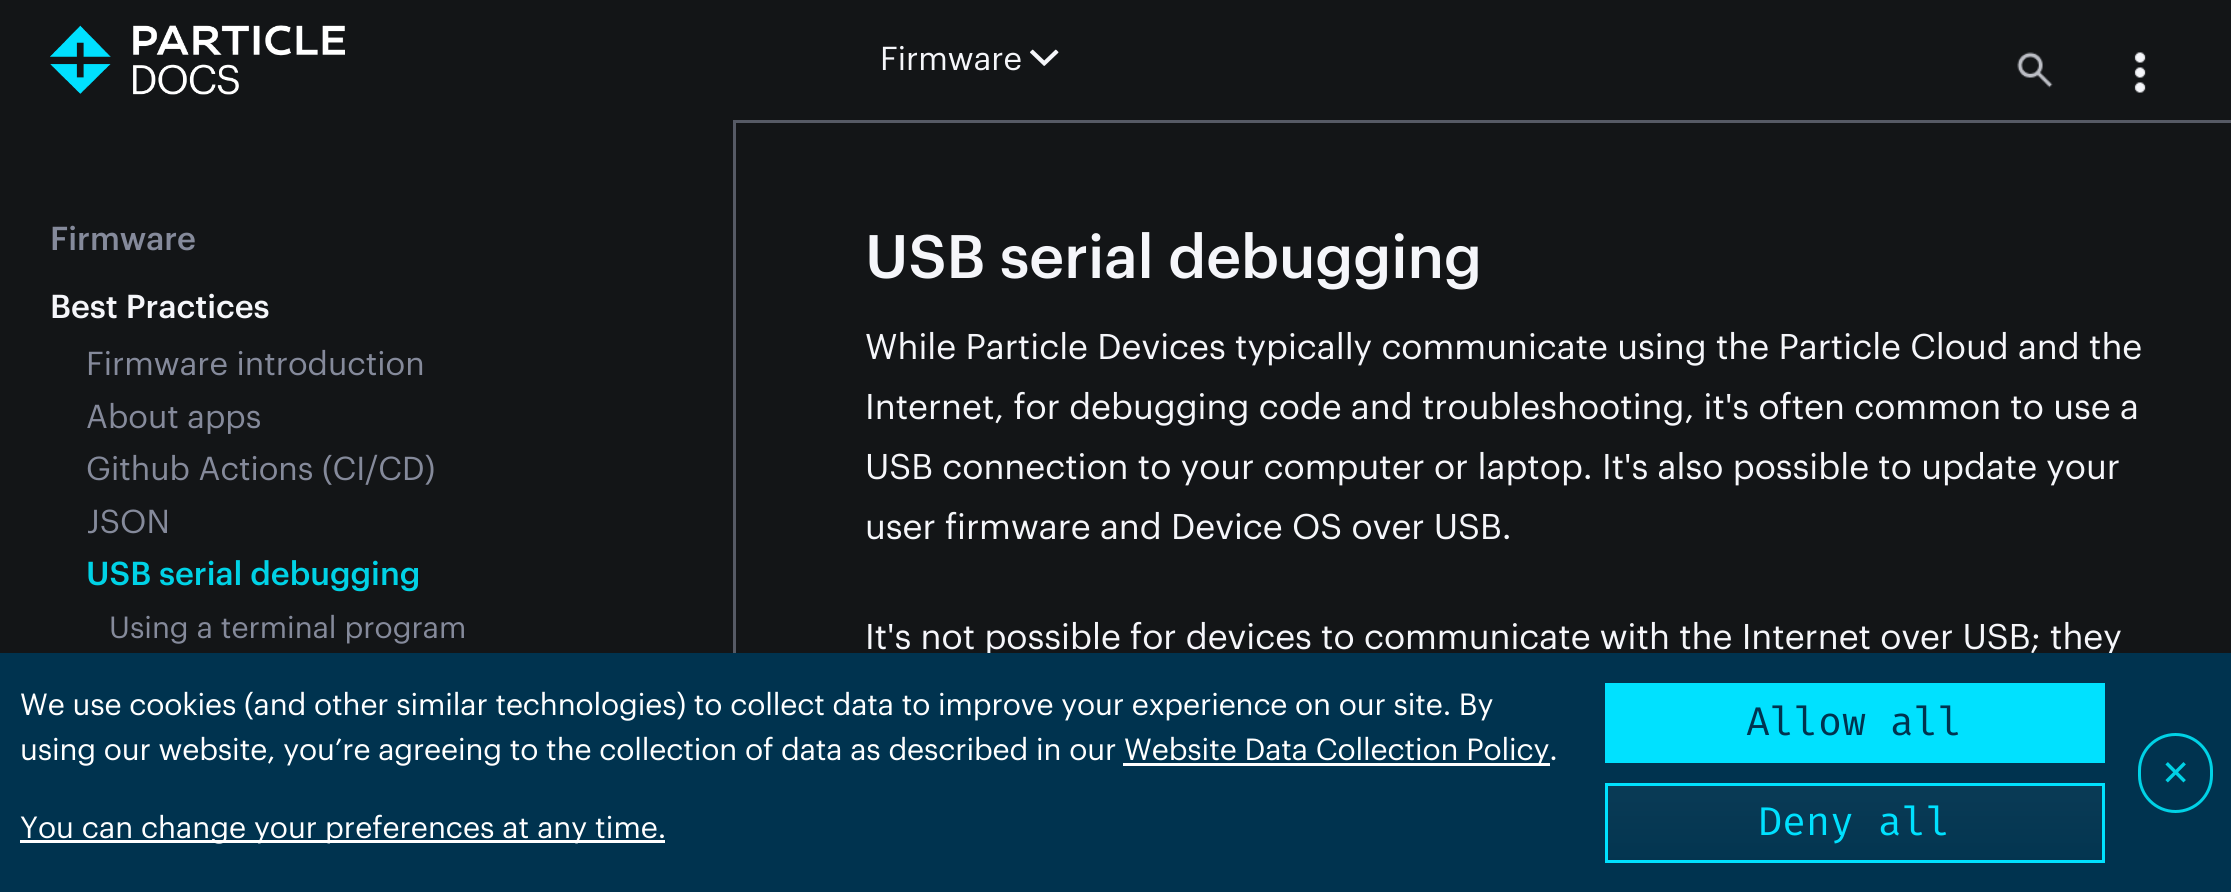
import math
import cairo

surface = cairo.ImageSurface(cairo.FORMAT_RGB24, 2231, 892)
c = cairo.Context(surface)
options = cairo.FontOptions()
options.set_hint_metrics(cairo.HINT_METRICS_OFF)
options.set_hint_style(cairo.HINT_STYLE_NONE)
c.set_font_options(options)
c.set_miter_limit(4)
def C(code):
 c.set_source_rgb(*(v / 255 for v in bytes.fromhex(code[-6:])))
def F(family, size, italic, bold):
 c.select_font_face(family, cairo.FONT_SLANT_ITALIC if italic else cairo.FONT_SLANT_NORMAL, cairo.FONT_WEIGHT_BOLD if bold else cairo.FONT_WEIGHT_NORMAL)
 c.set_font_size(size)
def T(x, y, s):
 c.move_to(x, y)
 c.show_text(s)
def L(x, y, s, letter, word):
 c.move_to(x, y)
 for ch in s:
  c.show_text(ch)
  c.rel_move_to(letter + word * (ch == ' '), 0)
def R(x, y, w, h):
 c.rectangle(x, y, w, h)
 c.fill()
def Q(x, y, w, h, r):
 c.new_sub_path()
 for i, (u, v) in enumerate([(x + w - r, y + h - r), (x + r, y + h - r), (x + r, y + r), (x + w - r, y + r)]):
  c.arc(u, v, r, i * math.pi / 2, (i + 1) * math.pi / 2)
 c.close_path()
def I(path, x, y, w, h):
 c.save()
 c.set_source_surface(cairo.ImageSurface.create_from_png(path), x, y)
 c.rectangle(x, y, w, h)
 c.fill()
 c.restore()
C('131517')
c.paint()
I('1.png',50,25,295,70)
C('565a65')
R(733,120,3,533)
R(735,120,1496,3)
F('Graphik',32.5,0,0)
C('f5f6fa')
T(880,70,'Firmware')
I('2.png',1030,49,29,17)
I('3.png',2017,52,36,36)
I('4.png',2134,52,12,41)
F('Graphik Medium',32.5,0,0)
C('858a9b')
T(50,250,'Firmware')
C('f5f6fa')
T(50,318,'Best Practices')
F('Graphik',32.5,0,0)
C('858a9b')
T(86,375,'Firmware introduction')
T(86,428,'About apps')
T(86,480,'Github Actions (CI/CD)')
c.save()
c.rectangle(88,498,595,52)
c.clip()
T(86,533,'JSON')
c.restore()
F('Graphik Medium',32.5,0,0)
C('00d2e6')
T(86,585,'USB serial debugging')
F('Graphik',30,0,0)
C('858a9b')
T(109,638,'Using a terminal program')
F('Graphik Medium',60,0,0)
C('f5f6fa')
T(865,278,'USB serial debugging')
F('Graphik',35,0,0)
T(865,359,'While Particle Devices typically communicate using the Particle Cloud and the')
T(865,419,'Internet, for debugging code and troubleshooting, it\'s often common to use a')
T(865,479,'USB connection to your computer or laptop. It\'s also possible to update your')
T(865,539,'user firmware and Device OS over USB.')
T(865,649,'It\'s not possible for devices to communicate with the Internet over USB; they')
C('00334f')
R(0,653,2231,239)
F('Graphik',30,0,0)
C('ffffff')
L(20,715,'We use cookies (and other similar technologies) to collect data to improve your experience on our site. By',-.12,0)
L(20,760,'using our website, you’re agreeing to the collection of data as described in our',-.12,0)
R(1123,763,427,3)
L(1124,760,'Website Data Collection Policy.',-.12,0)
R(20,840,645,3)
T(20,838,'You can change your preferences at any time.')
C('00e1ff')
R(1610,688,490,70)
c.rectangle(1607.5,685.5,495,75)
c.set_line_width(5)
c.stroke()
F('Fira Mono',40,0,0)
C('00334f')
T(1746,735,'Allow all')
gradient = cairo.LinearGradient(1855,863,1855,783)
gradient.add_color_stop_rgba(0,0.012,0.208,0.314,1)
gradient.add_color_stop_rgba(1,0.039,0.231,0.337,1)
c.set_source(gradient)
R(1608,786,494,74)
c.rectangle(1606.5,784.5,497,77)
C('00e1ff')
c.set_line_width(3)
c.stroke()
T(1758,835,'Deny all')
Q(2139.5,734.5,72,77,36)
C('00d2e6')
c.stroke()
F('DejaVu Sans',35,0,0)
T(2161,785,'✕')
surface.write_to_png('o.png')
